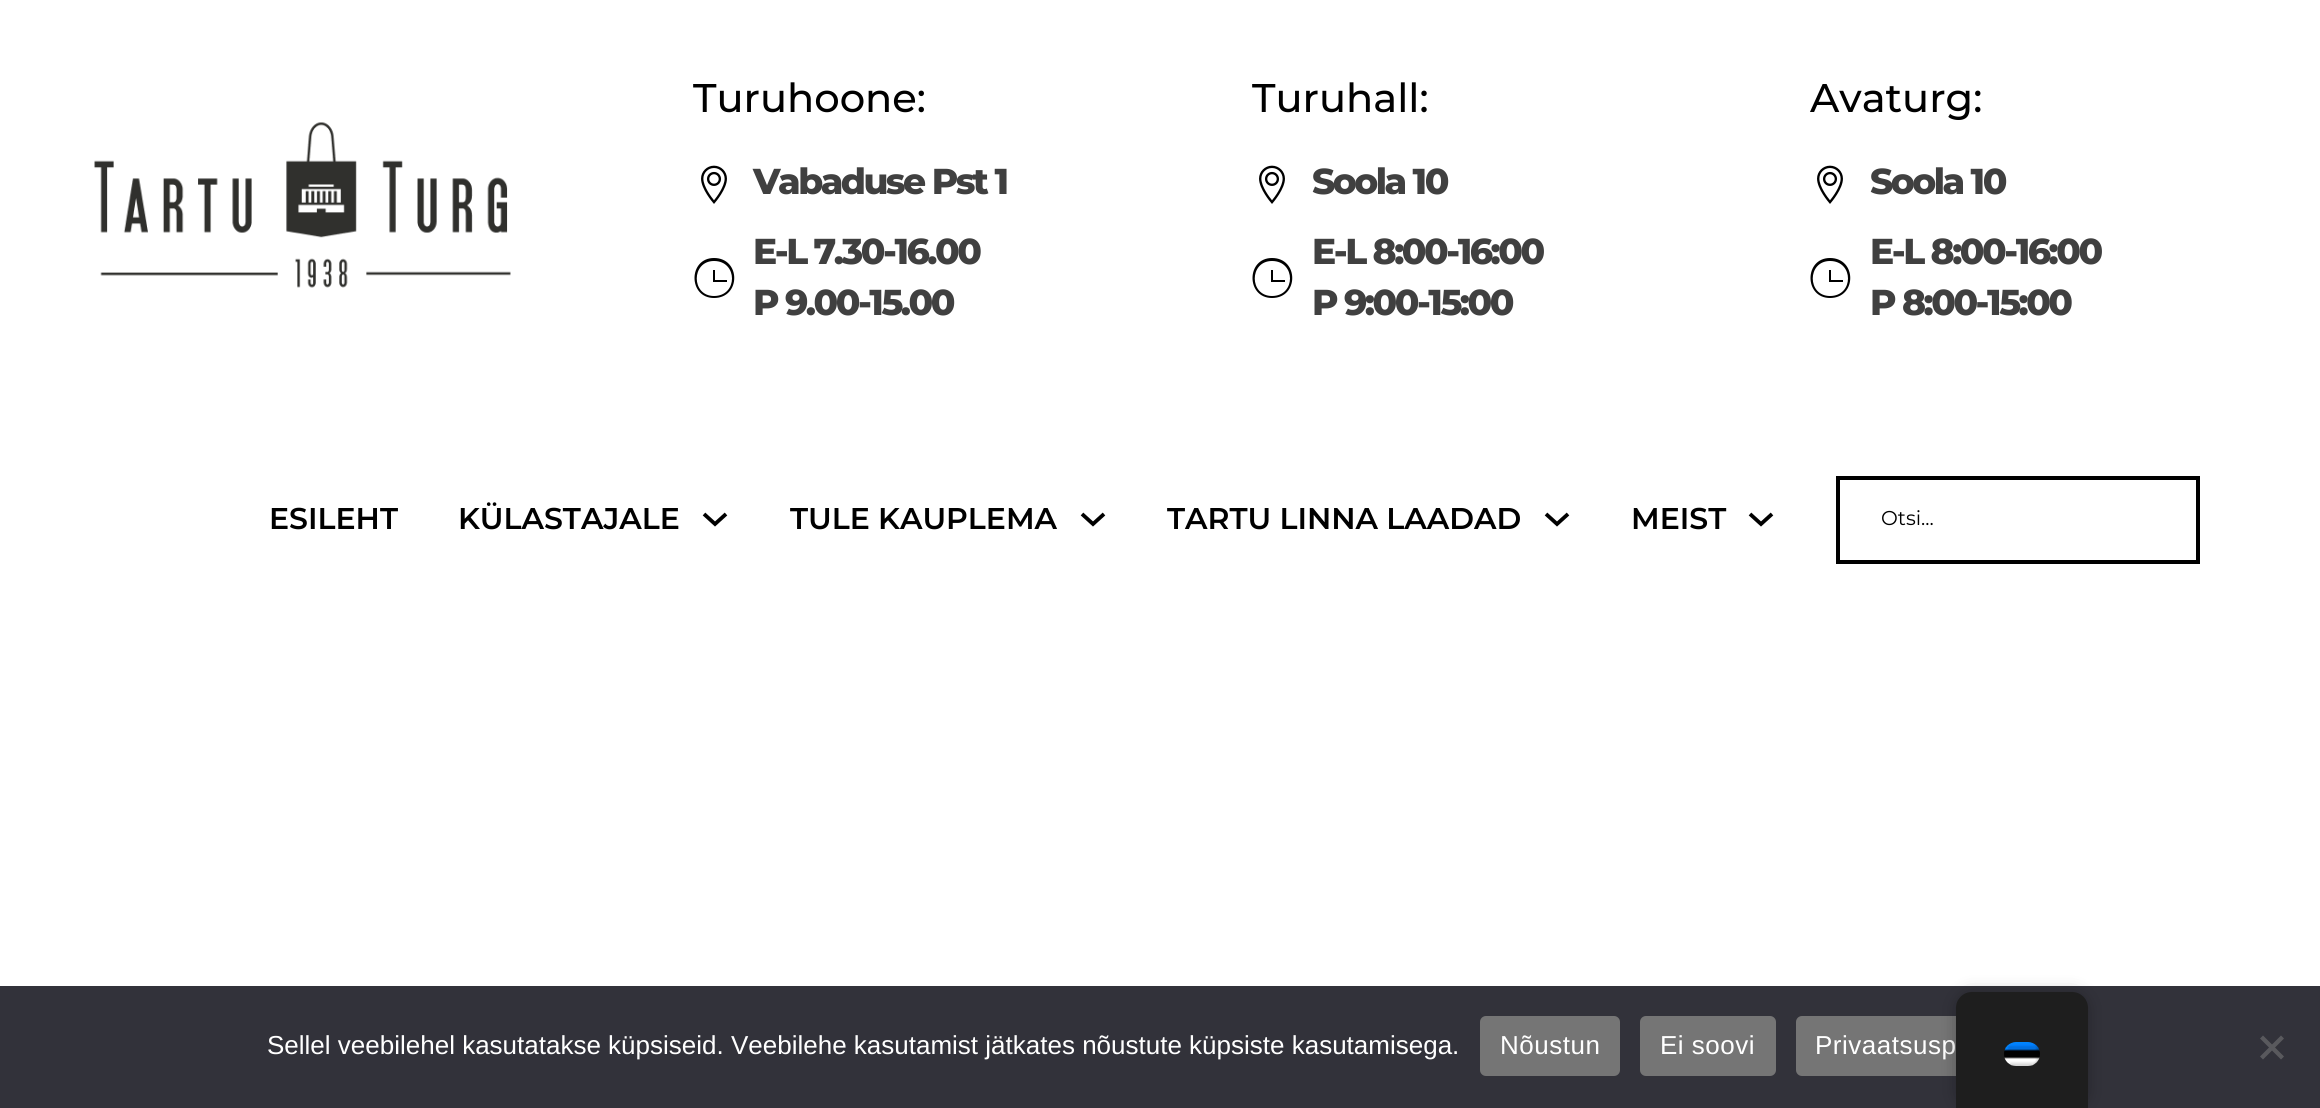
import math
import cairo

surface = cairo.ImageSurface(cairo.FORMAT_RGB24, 2320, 1108)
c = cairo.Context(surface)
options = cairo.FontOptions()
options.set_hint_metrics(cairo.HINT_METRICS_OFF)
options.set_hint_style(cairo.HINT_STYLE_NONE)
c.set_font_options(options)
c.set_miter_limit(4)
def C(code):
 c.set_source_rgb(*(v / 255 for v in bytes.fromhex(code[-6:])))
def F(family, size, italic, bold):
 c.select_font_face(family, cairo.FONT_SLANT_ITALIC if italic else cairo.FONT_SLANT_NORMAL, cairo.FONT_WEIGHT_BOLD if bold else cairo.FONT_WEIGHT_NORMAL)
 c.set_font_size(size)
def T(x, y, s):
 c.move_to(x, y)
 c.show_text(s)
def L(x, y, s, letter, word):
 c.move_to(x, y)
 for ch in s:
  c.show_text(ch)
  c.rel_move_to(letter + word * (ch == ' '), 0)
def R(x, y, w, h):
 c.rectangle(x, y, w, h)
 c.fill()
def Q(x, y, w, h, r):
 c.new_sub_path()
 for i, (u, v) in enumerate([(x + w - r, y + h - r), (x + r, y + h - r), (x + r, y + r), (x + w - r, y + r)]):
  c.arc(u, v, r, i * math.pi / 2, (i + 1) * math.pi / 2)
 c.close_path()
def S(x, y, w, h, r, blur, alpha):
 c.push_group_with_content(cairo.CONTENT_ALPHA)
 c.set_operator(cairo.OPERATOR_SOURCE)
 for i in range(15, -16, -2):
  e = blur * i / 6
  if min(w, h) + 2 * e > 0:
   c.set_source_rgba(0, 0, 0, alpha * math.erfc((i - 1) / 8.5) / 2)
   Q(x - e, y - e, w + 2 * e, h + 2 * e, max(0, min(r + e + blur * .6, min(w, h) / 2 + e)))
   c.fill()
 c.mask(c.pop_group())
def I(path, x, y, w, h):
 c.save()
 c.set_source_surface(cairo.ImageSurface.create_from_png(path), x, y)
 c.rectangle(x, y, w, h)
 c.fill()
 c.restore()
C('ffffff')
c.paint()
I('1.png',94,122,417,166)
F('Montserrat Medium',40,0,0)
C('000000')
T(693,112,'Turuhoone:')
I('2.png',701,165,26,39)
F('Montserrat ExtraBold',36,0,0)
C('404040')
L(753,194,'Vabaduse Pst 1',-2.5,0)
C('000000')
c.new_path()
c.move_to(714,258)
c.curve_to(688,258,688,298,714,298)
c.curve_to(741,298,741,258,714,258)
c.close_path()
c.move_to(714,296)
c.curve_to(691,296,691,261,714,261)
c.curve_to(738,261,738,296,714,296)
c.close_path()
c.move_to(727,280)
c.line_to(727,282)
c.line_to(713,282)
c.line_to(713,270)
c.line_to(715,270)
c.line_to(715,280)
c.close_path()
c.fill()
C('404040')
L(753,264,'E-L 7.30-16.00',-2.5,0)
L(753,315,'P 9.00-15.00',-2.5,0)
F('Montserrat Medium',40,0,0)
C('000000')
T(1252,112,'Turuhall:')
I('2.png',1259,165,26,39)
F('Montserrat ExtraBold',36,0,0)
C('404040')
L(1312,194,'Soola 10',-2.5,0)
C('000000')
c.new_path()
c.move_to(1272,258)
c.curve_to(1246,258,1246,298,1272,298)
c.curve_to(1299,298,1299,258,1272,258)
c.close_path()
c.move_to(1272,296)
c.curve_to(1249,296,1249,261,1272,261)
c.curve_to(1296,261,1296,296,1272,296)
c.close_path()
c.move_to(1285,280)
c.line_to(1285,282)
c.line_to(1271,282)
c.line_to(1271,270)
c.line_to(1273,270)
c.line_to(1273,280)
c.close_path()
c.fill()
C('404040')
L(1312,264,'E-L 8:00-16:00',-2.5,0)
L(1312,315,'P 9:00-15:00',-2.5,0)
F('Montserrat Medium',40,0,0)
C('000000')
T(1810,112,'Avaturg:')
I('2.png',1817,165,26,39)
F('Montserrat ExtraBold',36,0,0)
C('404040')
L(1870,194,'Soola 10',-2.5,0)
C('000000')
c.new_path()
c.move_to(1830,258)
c.curve_to(1804,258,1804,298,1830,298)
c.curve_to(1857,298,1857,258,1830,258)
c.close_path()
c.move_to(1830,296)
c.curve_to(1807,296,1807,261,1830,261)
c.curve_to(1854,261,1854,296,1830,296)
c.close_path()
c.move_to(1843,280)
c.line_to(1843,282)
c.line_to(1829,282)
c.line_to(1829,270)
c.line_to(1831,270)
c.line_to(1831,280)
c.close_path()
c.fill()
C('404040')
L(1870,264,'E-L 8:00-16:00',-2.5,0)
L(1870,315,'P 8:00-15:00',-2.5,0)
F('Montserrat SemiBold',30,0,0)
C('000000')
T(269,529,'ESILEHT')
T(458,529,'KÜLASTAJALE')
c.new_path()
c.move_to(704,514)
c.line_to(715,524)
c.line_to(726,514)
c.set_line_width(3.8)
c.stroke()
T(790,529,'TULE KAUPLEMA')
c.new_path()
c.move_to(1082,514)
c.line_to(1093,524)
c.line_to(1104,514)
c.stroke()
T(1167,529,'TARTU LINNA LAADAD')
c.new_path()
c.move_to(1546,514)
c.line_to(1557,524)
c.line_to(1568,514)
c.stroke()
T(1631,529,'MEIST')
c.new_path()
c.move_to(1750,514)
c.line_to(1761,524)
c.line_to(1772,514)
c.stroke()
c.rectangle(1838,478,360,84)
c.set_line_width(4)
c.stroke()
F('Montserrat',20,0,0)
T(1881,525,'Otsi...')
C('32323a')
R(0,986,2320,122)
F('Liberation Sans',26,0,0)
C('ffffff')
T(267,1054,'Sellel veebilehel kasutatakse küpsiseid. Veebilehe kasutamist jätkates nõustute küpsiste kasutamisega.')
C('757575')
Q(1480,1016,140,60,6)
c.fill()
C('ffffff')
L(1500,1054,'Nõustun',.5,0)
C('757575')
Q(1640,1016,136,60,6)
c.fill()
C('ffffff')
L(1660,1054,'Ei soovi',.5,0)
C('757575')
Q(1796,1016,256,60,6)
c.fill()
C('ffffff')
L(1815,1054,'Privaatsusp',.5,0)
C('59595d')
c.new_path()
c.move_to(2281,1035.5)
c.line_to(2284,1038.5)
c.line_to(2263,1059.5)
c.line_to(2260,1056.5)
c.close_path()
c.fill()
c.new_path()
c.move_to(2260,1038.5)
c.line_to(2263,1035.5)
c.line_to(2284,1056.5)
c.line_to(2281,1059.5)
c.close_path()
c.fill()
C('000000')
S(1956,992,132,116,16,8,.25)
C('1e1e1e')
c.new_path()
c.move_to(1972,992)
c.line_to(2072,992)
c.curve_to(2081,992,2088,999,2088,1008)
c.line_to(2088,1108)
c.line_to(1956,1108)
c.line_to(1956,1008)
c.curve_to(1956,999,1963,992,1972,992)
c.close_path()
c.fill()
I('3.png',2004,1042,36,24)
surface.write_to_png('o.png')
